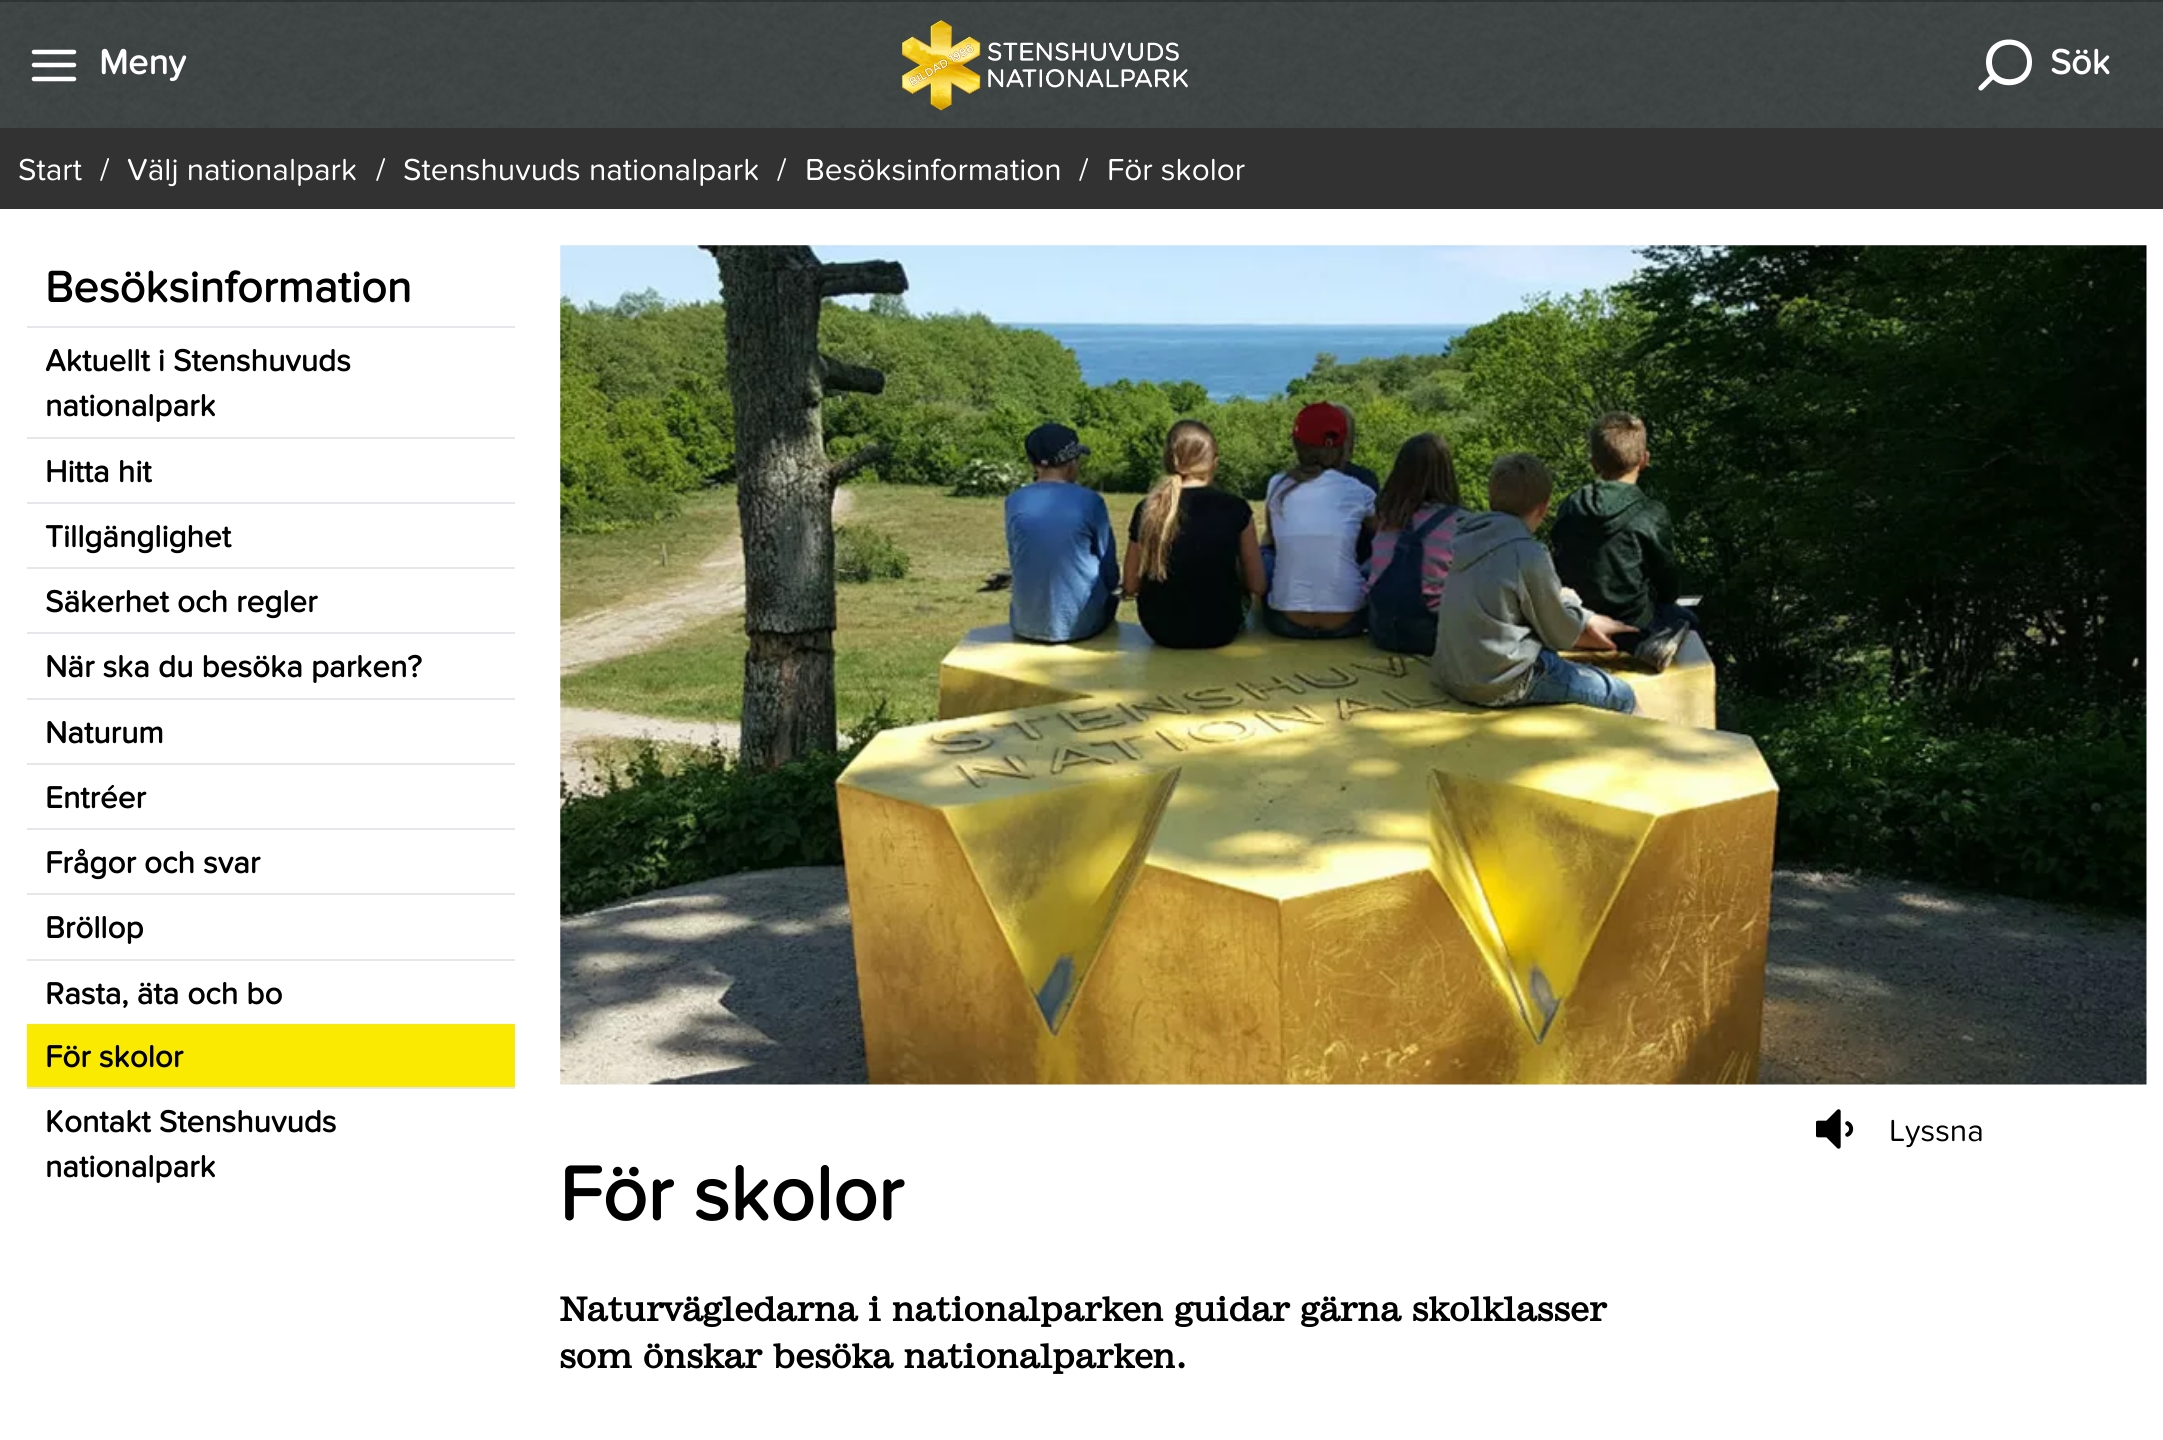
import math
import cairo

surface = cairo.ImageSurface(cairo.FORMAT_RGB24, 2163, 1440)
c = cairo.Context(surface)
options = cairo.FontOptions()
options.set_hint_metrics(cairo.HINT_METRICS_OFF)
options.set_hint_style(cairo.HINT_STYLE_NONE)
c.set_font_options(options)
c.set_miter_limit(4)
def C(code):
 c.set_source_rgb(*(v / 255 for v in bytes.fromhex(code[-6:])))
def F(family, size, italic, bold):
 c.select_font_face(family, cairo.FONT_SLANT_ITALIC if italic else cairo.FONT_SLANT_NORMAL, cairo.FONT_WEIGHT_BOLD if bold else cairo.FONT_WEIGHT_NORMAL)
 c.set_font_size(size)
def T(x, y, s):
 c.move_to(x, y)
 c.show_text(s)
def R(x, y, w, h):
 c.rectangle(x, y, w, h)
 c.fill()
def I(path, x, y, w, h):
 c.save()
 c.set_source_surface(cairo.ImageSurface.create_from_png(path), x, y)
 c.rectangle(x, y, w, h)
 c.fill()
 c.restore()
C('ffffff')
c.paint()
I('1.png',0,0,2163,128)
c.set_source_rgba(0,0,0,0.25)
R(0,0,2163,2)
c.new_path()
c.move_to(34,65)
c.line_to(74,65)
c.move_to(34,52)
c.line_to(74,52)
c.move_to(34,79)
c.line_to(74,79)
C('ffffff')
c.set_line_width(4.5)
c.set_line_cap(cairo.LINE_CAP_ROUND)
c.set_line_join(cairo.LINE_JOIN_ROUND)
c.stroke()
F('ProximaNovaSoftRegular',36,0,1)
T(99,74,'Meny')
I('2.png',902,20,286,91)
c.new_path()
c.move_to(1986,62)
c.curve_to(1986,32,2032,32,2032,62)
c.curve_to(2032,93,1986,93,1986,62)
c.close_path()
c.move_to(2027,62)
c.curve_to(2027,39,1992,39,1992,62)
c.curve_to(1992,85,2027,85,2027,62)
c.close_path()
c.fill()
c.new_path()
c.move_to(1983,89.5)
c.line_to(1996.5,76)
c.line_to(1993,72.5)
c.line_to(1979,86.5)
c.curve_to(1977,89.5,1980.5,92,1983,89.5)
c.close_path()
c.fill()
T(2050,74,'Sök')
C('323232')
R(0,128,2163,81)
F('ProximaNovaSoftRegular',31.5,0,0)
C('ffffff')
T(18,180,'Start')
T(100,180,'/')
T(127,180,'Välj nationalpark')
T(376,180,'/')
T(403,180,'Stenshuvuds nationalpark')
T(777,180,'/')
T(805,180,'Besöksinformation')
T(1079,180,'/')
T(1107,180,'För skolor')
F('ProximaNovaSoftRegular',45,0,1)
C('000000')
T(45,302,'Besöksinformation')
C('e5e7eb')
R(27,326,488,2)
F('ProximaNovaSoftRegular',31.5,0,1)
C('000000')
T(45,371,'Aktuellt i Stenshuvuds')
T(45,416,'nationalpark')
C('e5e7eb')
R(27,437,488,2)
C('000000')
T(45,482,'Hitta hit')
C('e5e7eb')
R(27,502,488,2)
C('000000')
T(45,547,'Tillgänglighet')
C('e5e7eb')
R(27,567,488,2)
C('000000')
T(45,612,'Säkerhet och regler')
C('e5e7eb')
R(27,632,488,2)
C('000000')
T(45,677,'När ska du besöka parken?')
C('e5e7eb')
R(27,698,488,2)
C('000000')
T(45,743,'Naturum')
C('e5e7eb')
R(27,763,488,2)
C('000000')
T(45,808,'Entréer')
C('e5e7eb')
R(27,828,488,2)
C('000000')
T(45,873,'Frågor och svar')
C('e5e7eb')
R(27,893,488,2)
C('000000')
T(45,938,'Bröllop')
C('e5e7eb')
R(27,959,488,2)
C('000000')
T(45,1004,'Rasta, äta och bo')
C('fae900')
R(27,1024,488,63)
C('000000')
T(45,1067,'För skolor')
C('e5e7eb')
R(27,1087,488,2)
C('000000')
T(45,1132,'Kontakt Stenshuvuds')
T(45,1177,'nationalpark')
I('3.png',560,245,1587,840)
I('4.png',1816,1109,38,40)
F('ProximaNovaSoftRegular',31.5,0,0)
T(1889,1141,'Lyssna')
F('ProximaNovaSoftRegular',78.5,0,1)
T(559,1220,'För skolor')
F('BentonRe',31.5,0,1)
T(559,1321,'Naturvägledarna i nationalparken guidar gärna skolklasser')
T(559,1368,'som önskar besöka nationalparken.')
surface.write_to_png('o.png')
